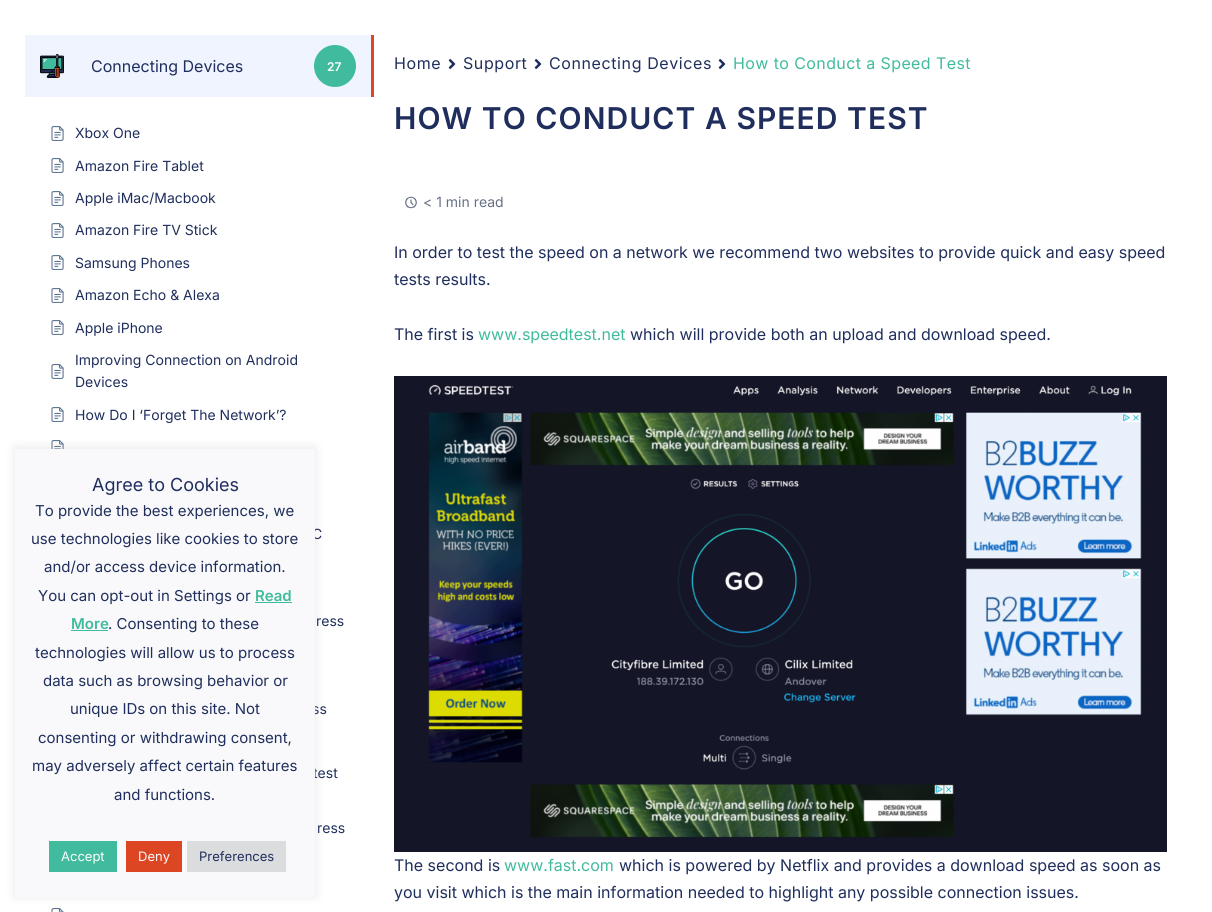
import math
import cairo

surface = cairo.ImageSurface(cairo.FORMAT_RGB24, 1212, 912)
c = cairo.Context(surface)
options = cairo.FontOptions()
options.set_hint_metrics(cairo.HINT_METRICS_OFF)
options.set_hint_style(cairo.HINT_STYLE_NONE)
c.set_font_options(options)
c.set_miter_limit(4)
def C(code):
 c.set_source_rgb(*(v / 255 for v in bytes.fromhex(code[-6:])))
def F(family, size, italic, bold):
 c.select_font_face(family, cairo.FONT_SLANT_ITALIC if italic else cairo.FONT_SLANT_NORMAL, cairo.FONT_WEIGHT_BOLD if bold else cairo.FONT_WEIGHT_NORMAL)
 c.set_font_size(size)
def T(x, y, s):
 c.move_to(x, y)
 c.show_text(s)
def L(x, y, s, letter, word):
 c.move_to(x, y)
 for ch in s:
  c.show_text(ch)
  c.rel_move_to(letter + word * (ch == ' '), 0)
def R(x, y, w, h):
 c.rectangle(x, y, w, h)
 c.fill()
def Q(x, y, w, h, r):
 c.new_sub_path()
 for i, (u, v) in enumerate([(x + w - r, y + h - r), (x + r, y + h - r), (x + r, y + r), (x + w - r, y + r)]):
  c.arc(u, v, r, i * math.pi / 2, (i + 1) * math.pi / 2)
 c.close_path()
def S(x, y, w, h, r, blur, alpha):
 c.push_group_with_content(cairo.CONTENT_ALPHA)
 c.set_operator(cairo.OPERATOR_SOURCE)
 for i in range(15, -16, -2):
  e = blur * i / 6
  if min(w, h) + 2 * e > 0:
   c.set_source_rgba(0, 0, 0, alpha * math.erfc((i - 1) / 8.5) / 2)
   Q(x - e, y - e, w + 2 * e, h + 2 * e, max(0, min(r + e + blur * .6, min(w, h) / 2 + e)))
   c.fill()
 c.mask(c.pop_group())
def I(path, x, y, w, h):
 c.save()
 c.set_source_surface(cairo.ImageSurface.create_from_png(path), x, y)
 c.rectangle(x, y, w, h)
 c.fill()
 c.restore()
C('ffffff')
c.paint()
C('eff4ff')
R(25,35,346,62)
C('dd4622')
R(371,35,3,62)
I('1.png',40,54,24,24)
F('Inter',16,0,0)
C('1f2e5c')
T(91,72,'Connecting Devices')
C('41bb9d')
c.new_path()
c.arc(335,66,21,0,2 * math.pi)
c.fill()
F('Inter SemiBold',12,0,0)
C('ffffff')
T(327,71,'27')
I('2.png',51,126,13,15)
F('Inter',14,0,0)
C('1f2e5c')
T(75,138,'Xbox One')
I('2.png',51,158,13,15)
T(75,171,'Amazon Fire Tablet')
I('2.png',51,191,13,15)
T(75,203,'Apple iMac/Macbook')
I('2.png',51,223,13,15)
T(75,235,'Amazon Fire TV Stick')
I('2.png',51,255,13,15)
T(75,268,'Samsung Phones')
I('2.png',51,288,13,15)
T(75,300,'Amazon Echo & Alexa')
I('2.png',51,320,13,15)
T(75,333,'Apple iPhone')
I('2.png',51,364,13,15)
T(75,365,'Improving Connection on Android')
T(75,387,'Devices')
I('2.png',51,407,13,15)
T(75,420,'How Do I ‘Forget The Network’?')
I('3.png',51,440,13,9)
T(312,539,'C')
T(316,626,'ress')
T(312,714,'ss')
T(313,778,'test')
T(317,833,'ress')
I('4.png',51,908,13,4)
F('Inter',16,0,0)
L(394,69,'Home',.6,0)
I('5.png',448,59,8,10)
L(463,69,'Support',.6,0)
I('5.png',534,59,8,10)
L(549,69,'Connecting Devices',.6,0)
I('5.png',718,59,8,10)
C('41bb9d')
L(733,69,'How to Conduct a Speed Test',.4,0)
F('Inter SemiBold',30,0,0)
C('1f2e5c')
L(394,129,'HOW TO CONDUCT A SPEED TEST',1.05,0)
I('6.png',405,196,12,13)
F('Inter',14,0,0)
C('667085')
T(423,207,'< 1 min read')
F('Inter',16,0,0)
C('1f2e5c')
T(394,258,'In order to test the speed on a network we recommend two websites to provide quick and easy speed')
T(394,285,'tests results.')
T(394,340,'The first is')
C('41bb9d')
T(478,340,'www.speedtest.net')
C('1f2e5c')
T(630,340,'which will provide both an upload and download speed.')
I('7.png',394,376,773,476)
T(394,871,'The second is')
C('41bb9d')
T(504,871,'www.fast.com')
C('1f2e5c')
T(619,871,'which is powered by Netflix and provides a download speed as soon as')
T(394,898,'you visit which is the main information needed to highlight any possible connection issues.')
C('acabab')
S(15,448,300,448,0,5,.3)
C('f9f9fb')
R(15,449,300,448)
F('Inter',18,0,0)
C('1f2e5c')
T(92,491,'Agree to Cookies')
F('Inter',15,0,0)
T(35,516,'To provide the best experiences, we')
T(31,544,'use technologies like cookies to store')
T(44,572,'and/or access device information.')
T(38,601,'You can opt-out in Settings or')
F('Inter SemiBold',15,0,0)
C('41bb9d')
T(255,601,'Read')
R(255,602,37,1)
T(71,629,'More')
R(71,630,37,1)
F('Inter',15,0,0)
C('1f2e5c')
T(108,629,'. Consenting to these')
T(35,658,'technologies will allow us to process')
T(43,686,'data such as browsing behavior or')
T(70,714,'unique IDs on this site. Not')
T(38,743,'consenting or withdrawing consent,')
T(32,771,'may adversely affect certain features')
T(114,800,'and functions.')
C('41bb9d')
R(49,841,68,31)
F('Inter',13,0,0)
C('ffffff')
T(61,861,'Accept')
C('dd4622')
R(126,841,56,31)
C('f9f9fb')
T(138,861,'Deny')
C('dbdcdd')
R(187,841,99,31)
C('1f2e5c')
T(199,861,'Preferences')
surface.write_to_png('o.png')
